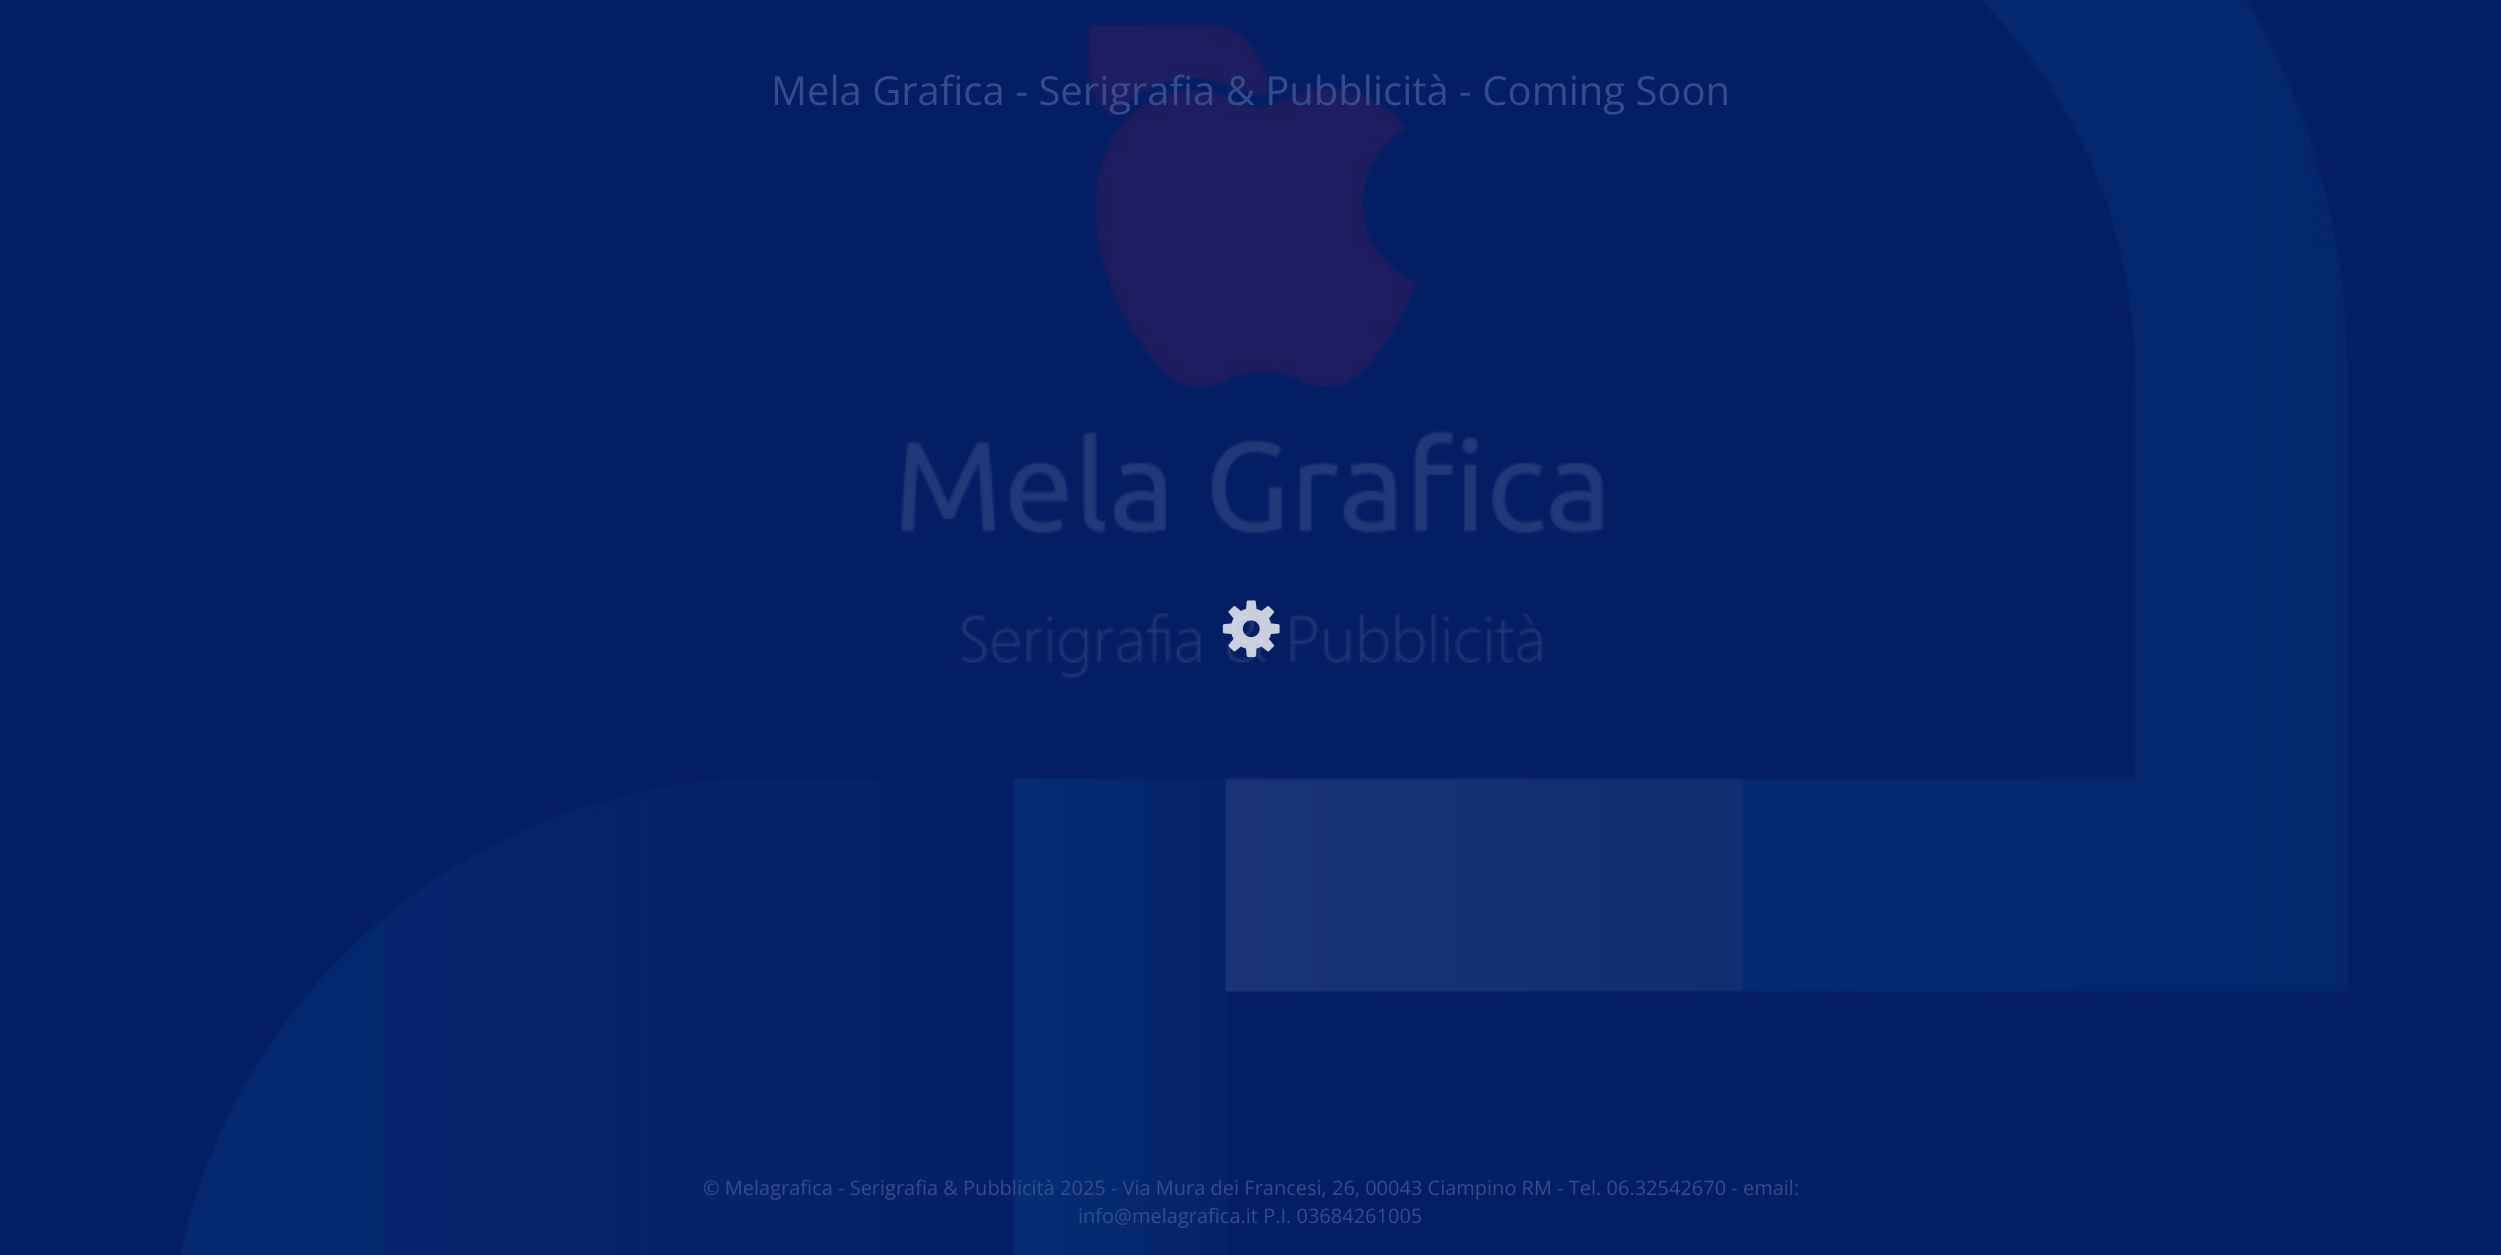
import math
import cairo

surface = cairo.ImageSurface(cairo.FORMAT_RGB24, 2501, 1255)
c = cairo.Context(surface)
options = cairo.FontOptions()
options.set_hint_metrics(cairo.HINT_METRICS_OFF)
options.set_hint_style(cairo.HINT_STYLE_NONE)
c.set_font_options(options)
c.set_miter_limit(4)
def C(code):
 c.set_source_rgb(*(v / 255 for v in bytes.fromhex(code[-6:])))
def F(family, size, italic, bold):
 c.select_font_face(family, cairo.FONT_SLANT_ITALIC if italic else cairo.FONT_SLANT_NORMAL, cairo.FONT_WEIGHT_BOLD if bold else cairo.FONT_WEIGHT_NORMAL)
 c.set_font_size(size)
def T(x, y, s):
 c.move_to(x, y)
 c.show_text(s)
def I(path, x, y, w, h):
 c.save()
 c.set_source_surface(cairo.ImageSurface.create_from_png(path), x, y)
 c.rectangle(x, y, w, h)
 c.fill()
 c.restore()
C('021d65')
c.paint()
I('1.png',0,0,2501,1255)
F('Open Sans',40,0,0)
C('364d8c')
T(771,105,'Mela Grafica - Serigrafia & Pubblicità - Coming Soon')
I('2.png',1222,600,58,58)
F('Open Sans',20,0,0)
T(703,1195,'© Melagrafica - Serigrafia & Pubblicità 2025 - Via Mura dei Francesi, 26, 00043 Ciampino RM - Tel. 06.32542670 - email:')
T(1078,1223,'info@melagrafica.it P.I. 03684261005')
surface.write_to_png('o.png')
